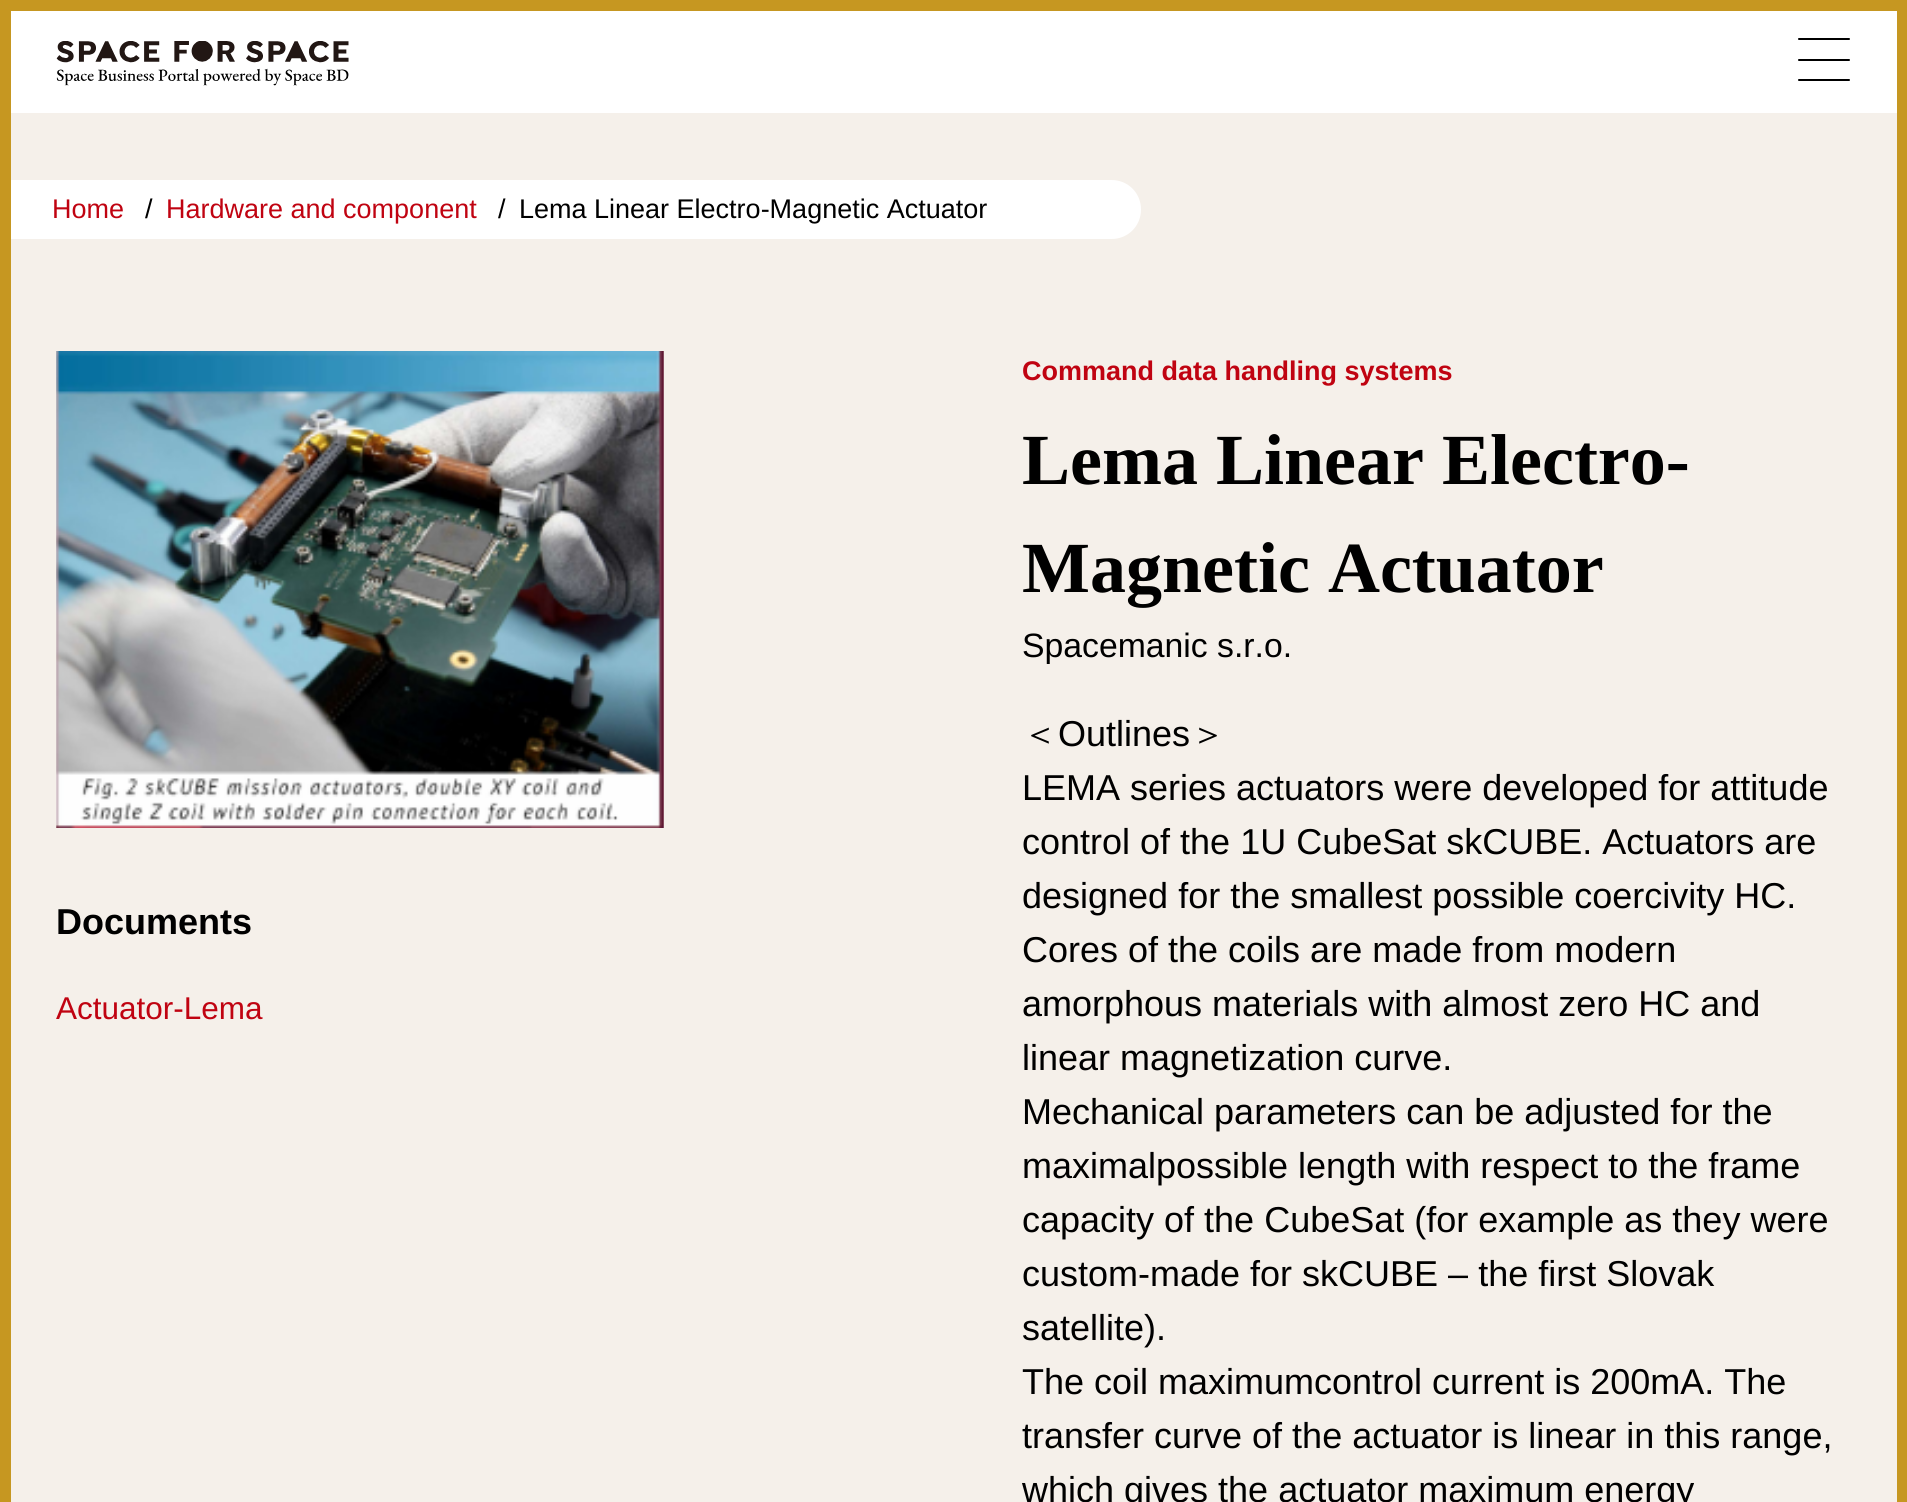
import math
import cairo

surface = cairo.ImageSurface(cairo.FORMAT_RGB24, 1907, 1502)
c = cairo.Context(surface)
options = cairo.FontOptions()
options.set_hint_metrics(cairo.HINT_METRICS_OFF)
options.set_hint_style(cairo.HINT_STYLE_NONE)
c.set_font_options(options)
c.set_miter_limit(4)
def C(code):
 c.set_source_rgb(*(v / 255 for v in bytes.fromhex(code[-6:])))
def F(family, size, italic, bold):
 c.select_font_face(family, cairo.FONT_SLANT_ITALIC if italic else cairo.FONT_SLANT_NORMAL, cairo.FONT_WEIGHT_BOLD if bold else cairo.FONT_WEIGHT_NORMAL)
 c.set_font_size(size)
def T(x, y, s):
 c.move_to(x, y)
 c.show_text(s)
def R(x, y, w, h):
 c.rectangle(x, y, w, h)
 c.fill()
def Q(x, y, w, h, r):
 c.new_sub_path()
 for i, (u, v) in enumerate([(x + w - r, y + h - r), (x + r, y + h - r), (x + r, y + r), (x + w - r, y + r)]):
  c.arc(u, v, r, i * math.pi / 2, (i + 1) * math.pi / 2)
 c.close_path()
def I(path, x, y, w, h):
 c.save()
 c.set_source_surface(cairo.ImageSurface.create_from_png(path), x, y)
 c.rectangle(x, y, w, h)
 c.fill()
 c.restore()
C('f5f0ea')
c.paint()
C('c69721')
R(0,0,1907,11)
R(0,11,11,1491)
C('ffffff')
R(11,11,1886,102)
I('1.png',56,41,293,45)
C('000000')
Q(1798,38,52,2,1)
c.fill()
Q(1798,59,52,2,1)
c.fill()
Q(1798,79,52,2,1)
c.fill()
C('c69721')
R(1897,11,10,1491)
C('ffffff')
c.new_path()
c.move_to(11,180)
c.line_to(1111.5,180)
c.curve_to(1128,180,1141,193,1141,209.5)
c.curve_to(1141,226,1128,239,1111.5,239)
c.line_to(11,239)
c.close_path()
c.fill()
F('Liberation Sans',27,0,0)
C('c00311')
T(52,218,'Home')
C('000000')
T(145,218,'/')
C('c00311')
T(166,218,'Hardware and component')
C('000000')
T(498,218,'/')
T(519,218,'Lema Linear Electro-Magnetic Actuator')
I('2.png',56,351,608,477)
F('Liberation Sans',36,0,1)
T(56,934,'Documents')
F('Liberation Sans',31.5,0,0)
C('c00311')
T(56,1019,'Actuator-Lema')
F('Liberation Sans',27,0,1)
T(1022,380,'Command data handling systems')
F('Liberation Serif',72,0,1)
C('000000')
T(1022,484,'Lema Linear Electro-')
T(1022,592,'Magnetic Actuator')
F('Liberation Sans',33.75,0,0)
T(1022,657,'Spacemanic s.r.o.')
F('WenQuanYi Zen Hei Medium',36,0,0)
T(1022,746,'＜')
F('Liberation Sans',36,0,0)
T(1058,746,'Outlines')
F('WenQuanYi Zen Hei Medium',36,0,0)
T(1190,746,'＞')
F('Liberation Sans',36,0,0)
T(1022,800,'LEMA series actuators were developed for attitude')
T(1022,854,'control of the 1U CubeSat skCUBE. Actuators are')
T(1022,908,'designed for the smallest possible coercivity HC.')
T(1022,962,'Cores of the coils are made from modern')
T(1022,1016,'amorphous materials with almost zero HC and')
T(1022,1070,'linear magnetization curve.')
T(1022,1124,'Mechanical parameters can be adjusted for the')
T(1022,1178,'maximalpossible length with respect to the frame')
T(1022,1232,'capacity of the CubeSat (for example as they were')
T(1022,1286,'custom-made for skCUBE – the first Slovak')
T(1022,1340,'satellite).')
T(1022,1394,'The coil maximumcontrol current is 200mA. The')
T(1022,1448,'transfer curve of the actuator is linear in this range,')
T(1022,1502,'which gives the actuator maximum energy')
surface.write_to_png('o.png')
